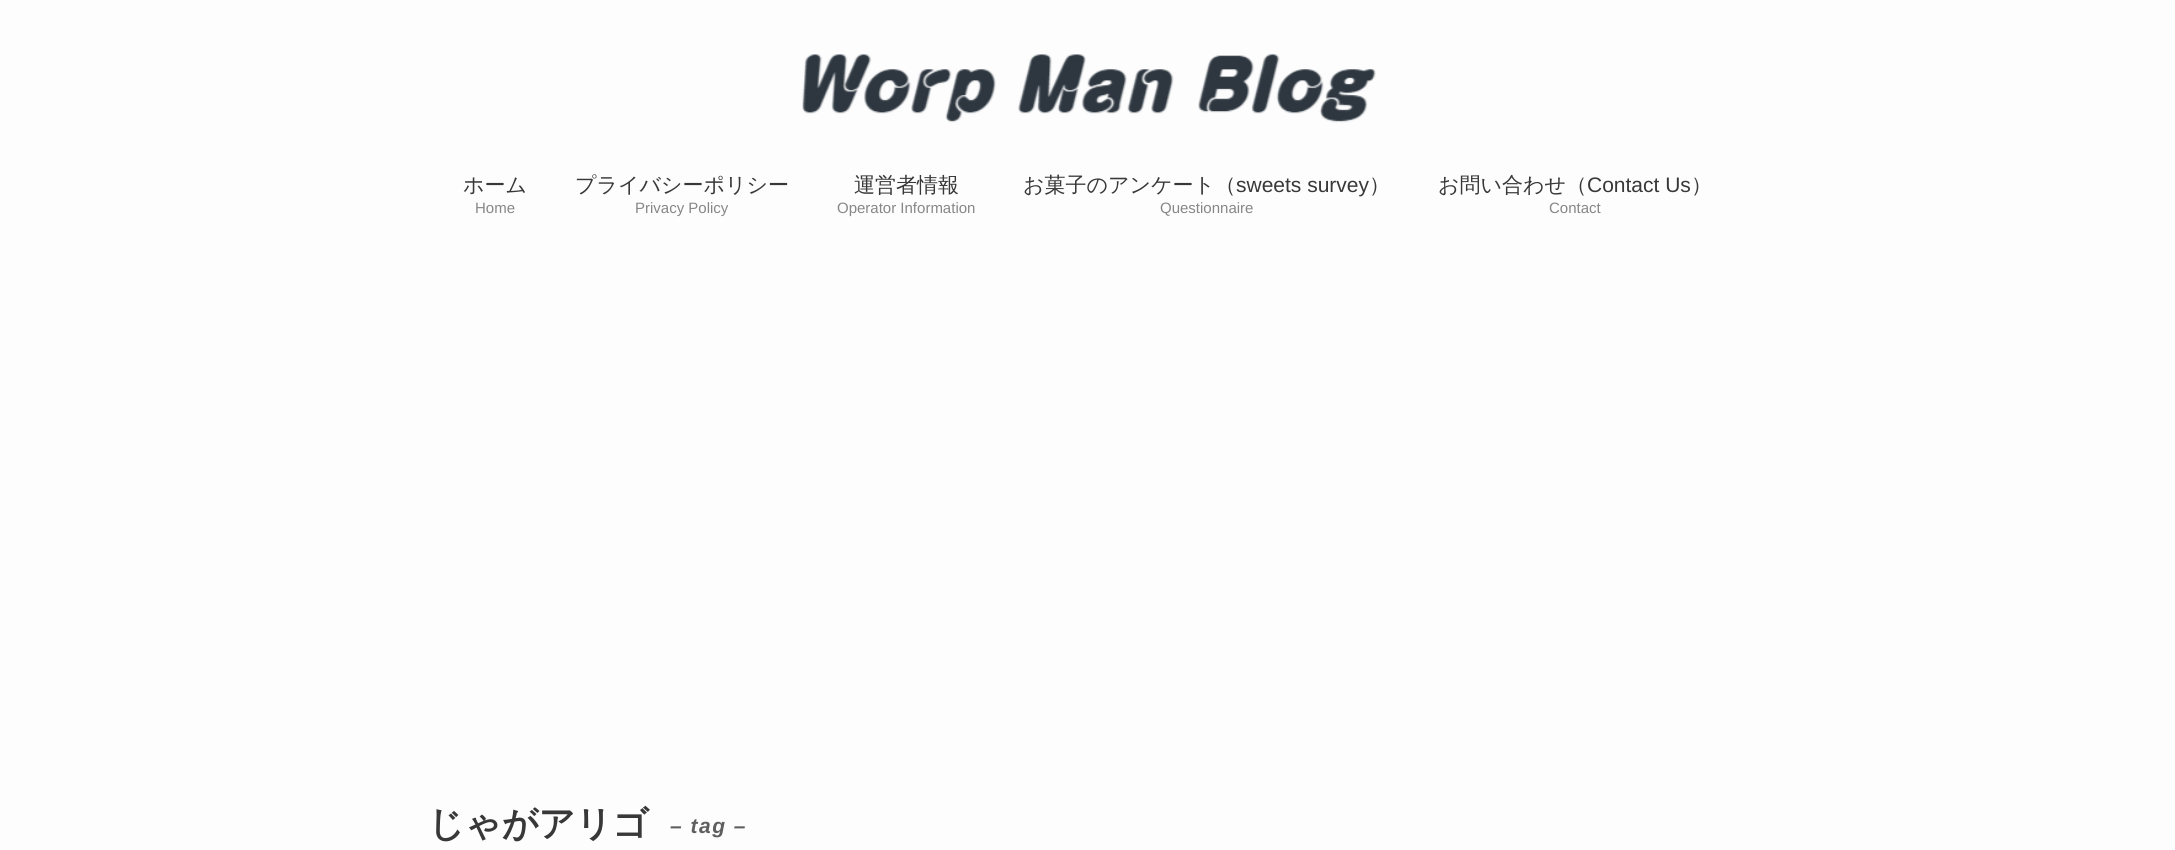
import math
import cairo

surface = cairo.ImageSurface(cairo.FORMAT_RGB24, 2175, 850)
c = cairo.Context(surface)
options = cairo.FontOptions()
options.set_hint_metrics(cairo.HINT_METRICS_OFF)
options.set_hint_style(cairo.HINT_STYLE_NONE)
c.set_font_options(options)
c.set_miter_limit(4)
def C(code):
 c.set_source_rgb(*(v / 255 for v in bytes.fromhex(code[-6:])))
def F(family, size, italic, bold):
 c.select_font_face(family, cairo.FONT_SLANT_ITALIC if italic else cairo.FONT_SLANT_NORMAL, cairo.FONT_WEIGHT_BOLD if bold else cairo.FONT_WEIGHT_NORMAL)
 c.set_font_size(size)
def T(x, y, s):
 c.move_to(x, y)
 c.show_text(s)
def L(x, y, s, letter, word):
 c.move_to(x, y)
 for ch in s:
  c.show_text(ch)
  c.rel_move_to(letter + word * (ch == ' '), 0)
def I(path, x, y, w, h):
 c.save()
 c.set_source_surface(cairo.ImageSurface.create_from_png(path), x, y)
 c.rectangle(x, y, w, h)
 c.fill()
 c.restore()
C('fdfdfd')
c.paint()
I('1.png',802,54,574,69)
F('WenQuanYi Zen Hei Medium',21,0,0)
C('383838')
T(463,192,'ホーム')
F('Liberation Sans',15,0,0)
C('878787')
T(475,213,'Home')
F('WenQuanYi Zen Hei Medium',21,0,0)
C('383838')
T(575,192,'プライバシーポリシー')
F('Liberation Sans',15,0,0)
C('878787')
T(635,213,'Privacy Policy')
F('WenQuanYi Zen Hei Medium',21,0,0)
C('383838')
T(854,192,'運営者情報')
F('Liberation Sans',15,0,0)
C('878787')
T(837,213,'Operator Information')
F('WenQuanYi Zen Hei Medium',21,0,0)
C('383838')
T(1023,192,'お菓子のアンケート（')
F('Liberation Sans',21,0,0)
T(1236,192,'sweets survey')
F('WenQuanYi Zen Hei Medium',21,0,0)
T(1369,192,'）')
F('Liberation Sans',15,0,0)
C('878787')
T(1160,213,'Questionnaire')
F('WenQuanYi Zen Hei Medium',21,0,0)
C('383838')
T(1438,192,'お問い合わせ（')
F('Liberation Sans',21,0,0)
T(1587,192,'Contact Us')
F('WenQuanYi Zen Hei Medium',21,0,0)
T(1691,192,'）')
F('Liberation Sans',15,0,0)
C('878787')
T(1549,213,'Contact')
F('WenQuanYi Zen Hei',36,0,1)
C('383838')
T(428,836,'じゃがアリゴ')
F('Liberation Sans',21,1,1)
C('5f5f5f')
L(670,833,'– tag –',1.5,0)
surface.write_to_png('o.png')
